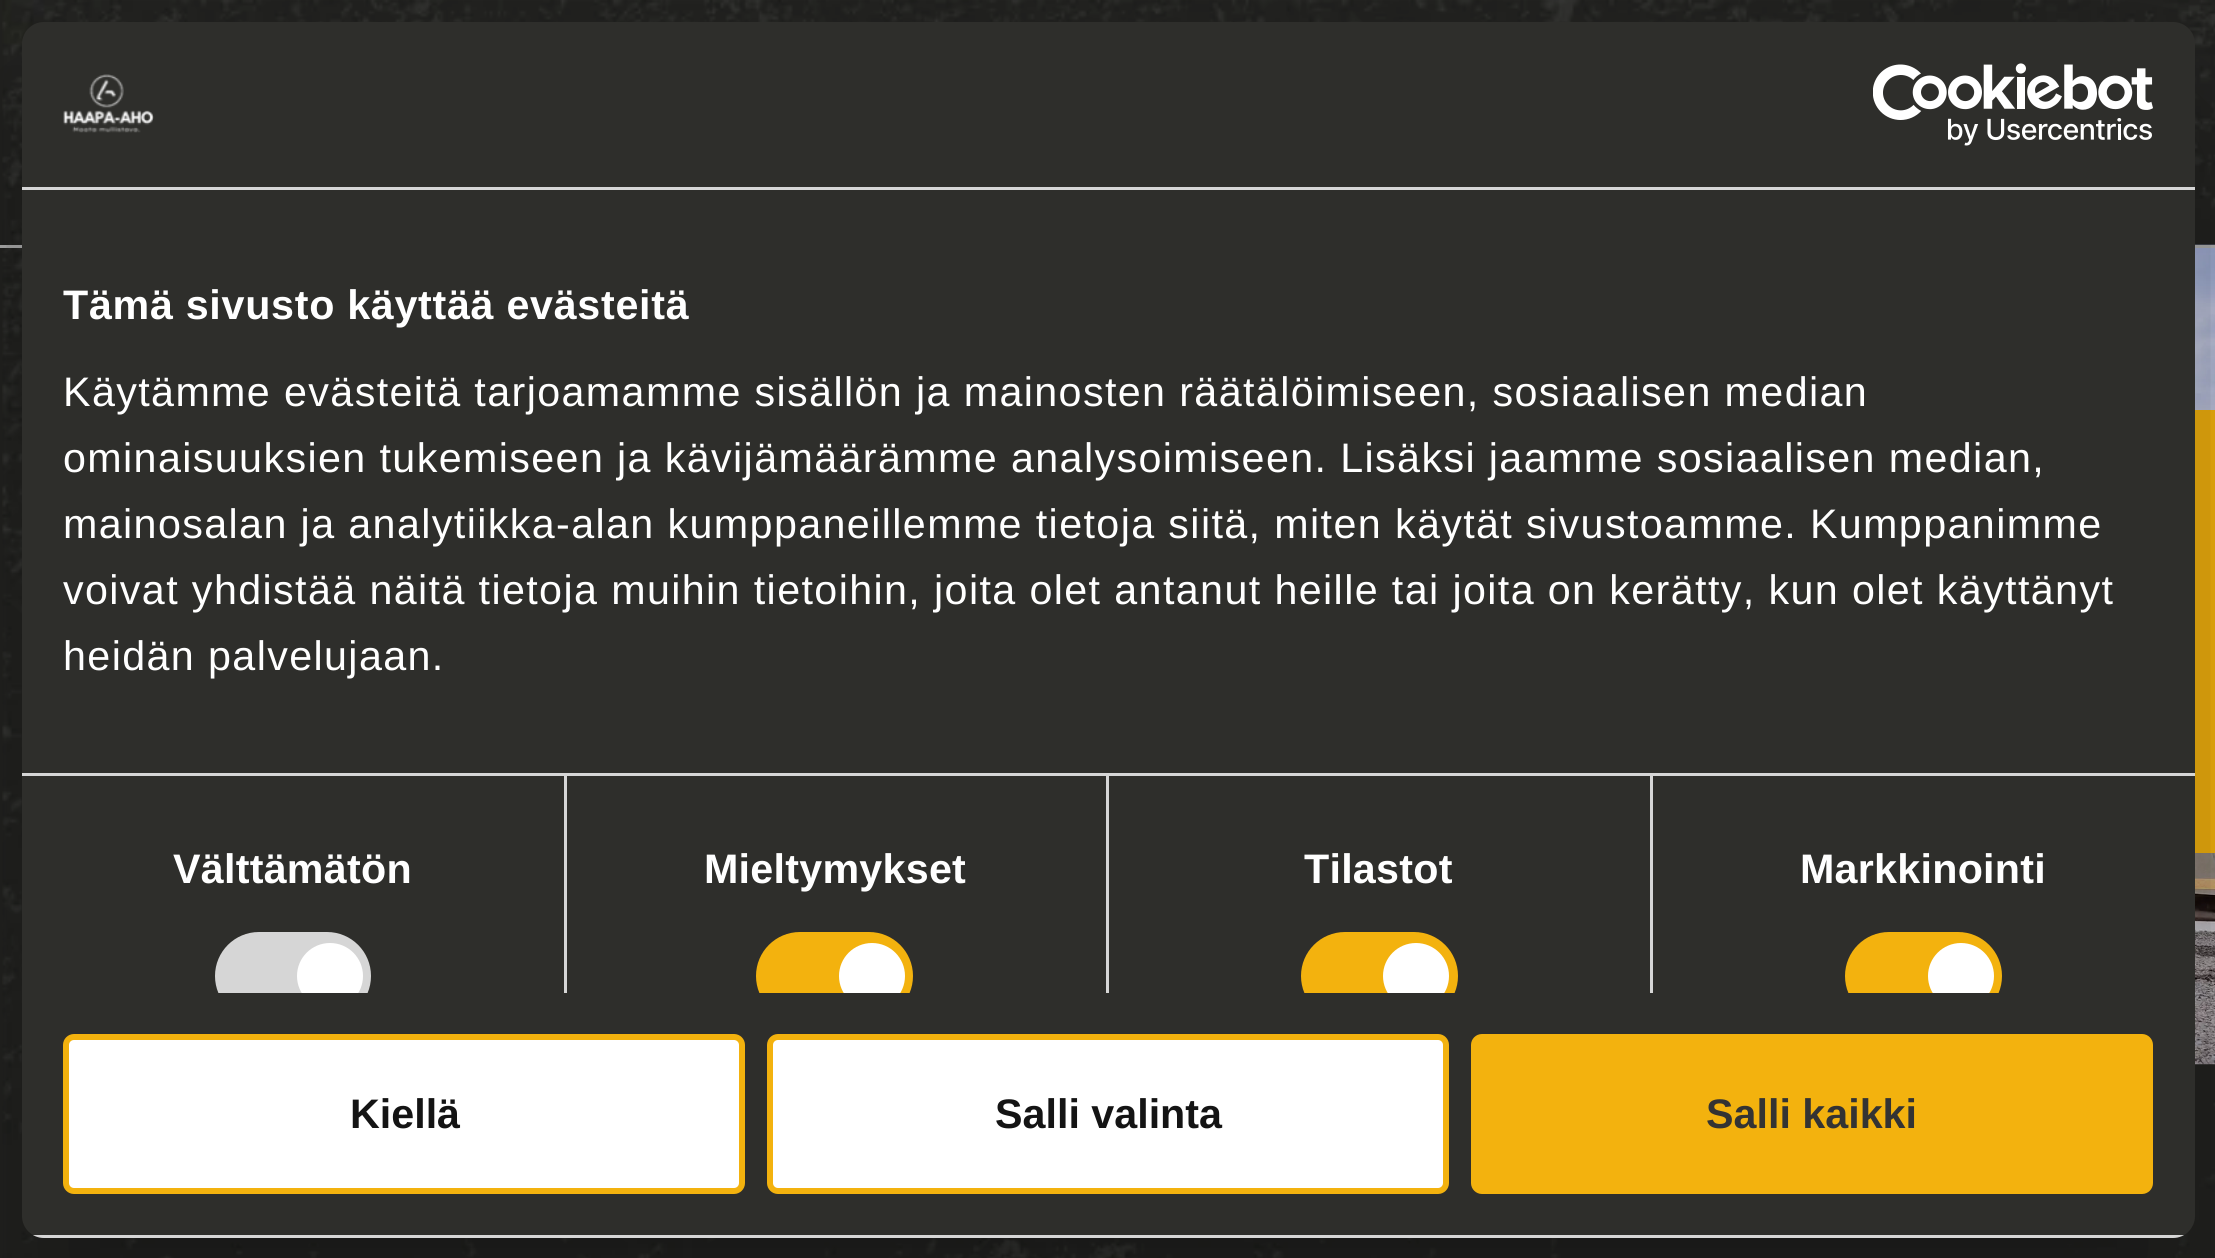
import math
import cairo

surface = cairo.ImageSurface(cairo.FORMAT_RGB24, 2215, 1258)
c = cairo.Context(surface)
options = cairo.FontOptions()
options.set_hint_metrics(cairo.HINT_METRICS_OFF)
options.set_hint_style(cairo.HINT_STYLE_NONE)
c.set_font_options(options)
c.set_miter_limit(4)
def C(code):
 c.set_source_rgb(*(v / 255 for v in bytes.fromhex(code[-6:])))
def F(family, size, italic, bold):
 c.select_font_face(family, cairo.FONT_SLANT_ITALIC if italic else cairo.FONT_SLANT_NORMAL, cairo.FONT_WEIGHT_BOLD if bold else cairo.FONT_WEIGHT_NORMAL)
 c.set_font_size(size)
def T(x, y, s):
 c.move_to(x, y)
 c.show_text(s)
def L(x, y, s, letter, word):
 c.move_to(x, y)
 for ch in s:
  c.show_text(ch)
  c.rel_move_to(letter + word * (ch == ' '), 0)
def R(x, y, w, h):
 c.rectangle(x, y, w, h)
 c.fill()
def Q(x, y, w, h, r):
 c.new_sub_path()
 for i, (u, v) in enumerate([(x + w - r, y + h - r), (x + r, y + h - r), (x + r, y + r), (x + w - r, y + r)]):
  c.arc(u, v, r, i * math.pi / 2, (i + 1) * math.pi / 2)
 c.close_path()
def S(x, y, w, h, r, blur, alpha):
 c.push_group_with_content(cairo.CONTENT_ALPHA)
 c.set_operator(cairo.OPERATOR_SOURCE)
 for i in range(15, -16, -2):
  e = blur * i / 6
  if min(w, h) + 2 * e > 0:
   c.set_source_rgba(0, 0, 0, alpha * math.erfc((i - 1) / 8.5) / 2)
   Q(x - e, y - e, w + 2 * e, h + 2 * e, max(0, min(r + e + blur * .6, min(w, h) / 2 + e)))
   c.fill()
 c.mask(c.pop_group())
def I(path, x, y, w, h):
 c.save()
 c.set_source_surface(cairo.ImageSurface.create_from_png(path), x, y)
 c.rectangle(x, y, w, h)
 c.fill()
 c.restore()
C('22221f')
c.paint()
I('1.png',2,0,2213,1258)
I('2.png',2195,244,20,821)
C('aeaeae')
R(0,245,2215,3)
C('f3b20e')
R(2195,410,20,443)
C('000000')
S(22,110,2173,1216,22,93.5,.3)
C('2e2e2b')
Q(22,22,2173,1216,22)
c.fill()
C('d6d6d6')
R(22,187,2173,3)
I('3.png',63,74,91,59)
I('4.png',1873,63,280,83)
R(22,773,2173,3)
F('Liberation Sans',41.25,0,1)
C('ffffff')
L(63,319,'Tämä sivusto käyttää evästeitä',.7,0)
F('Liberation Sans',41.25,0,0)
L(63,406,'Käytämme evästeitä tarjoamamme sisällön ja mainosten räätälöimiseen, sosiaalisen median',1.38,0)
L(63,472,'ominaisuuksien tukemiseen ja kävijämäärämme analysoimiseen. Lisäksi jaamme sosiaalisen median,',1.38,0)
L(63,538,'mainosalan ja analytiikka-alan kumppaneillemme tietoja siitä, miten käytät sivustoamme. Kumppanimme',1.38,0)
L(63,604,'voivat yhdistää näitä tietoja muihin tietoihin, joita olet antanut heille tai joita on kerätty, kun olet käyttänyt',1.38,0)
L(63,670,'heidän palvelujaan.',1.38,0)
C('d6d6d6')
R(564,776,3,217)
F('Liberation Sans',41.25,0,1)
C('ffffff')
L(173,883,'Välttämätön',.25,0)
c.save()
c.rectangle(22,190,2173,803)
c.clip()
C('d6d6d6')
Q(215,932,156,88,44)
c.fill()
C('ffffff')
c.arc(330,976,33,0,2 * math.pi)
c.fill()
c.restore()
C('d6d6d6')
R(1106,776,3,217)
C('ffffff')
L(704,883,'Mieltymykset',.25,0)
c.save()
c.rectangle(22,190,2173,803)
c.clip()
C('f3b20e')
Q(756,932,157,88,44)
c.fill()
C('ffffff')
c.arc(872,976,33,0,2 * math.pi)
c.fill()
c.restore()
C('d6d6d6')
R(1650,776,3,217)
C('ffffff')
L(1304,883,'Tilastot',.25,0)
c.save()
c.rectangle(22,190,2173,803)
c.clip()
C('f3b20e')
Q(1301,932,157,88,44)
c.fill()
C('ffffff')
c.arc(1416,976,33,0,2 * math.pi)
c.fill()
c.restore()
L(1800,883,'Markkinointi',.25,0)
c.save()
c.rectangle(22,190,2173,803)
c.clip()
C('f3b20e')
Q(1845,932,157,88,44)
c.fill()
C('ffffff')
c.arc(1961,976,33,0,2 * math.pi)
c.fill()
c.restore()
c.save()
Q(22,22,2173,1216,22)
c.clip()
C('d6d6d6')
R(33,1235,2151,3)
c.restore()
Q(66,1037,676,154,8)
c.fill_preserve()
C('f3b20e')
c.set_line_width(6)
c.stroke()
C('141414')
T(350,1128,'Kiellä')
C('ffffff')
Q(770,1037,676,154,8)
c.fill_preserve()
C('f3b20e')
c.stroke()
C('141414')
T(995,1128,'Salli valinta')
C('f3b20e')
Q(1474,1037,676,154,8)
c.fill_preserve()
c.stroke()
C('333333')
T(1706,1128,'Salli kaikki')
surface.write_to_png('o.png')
